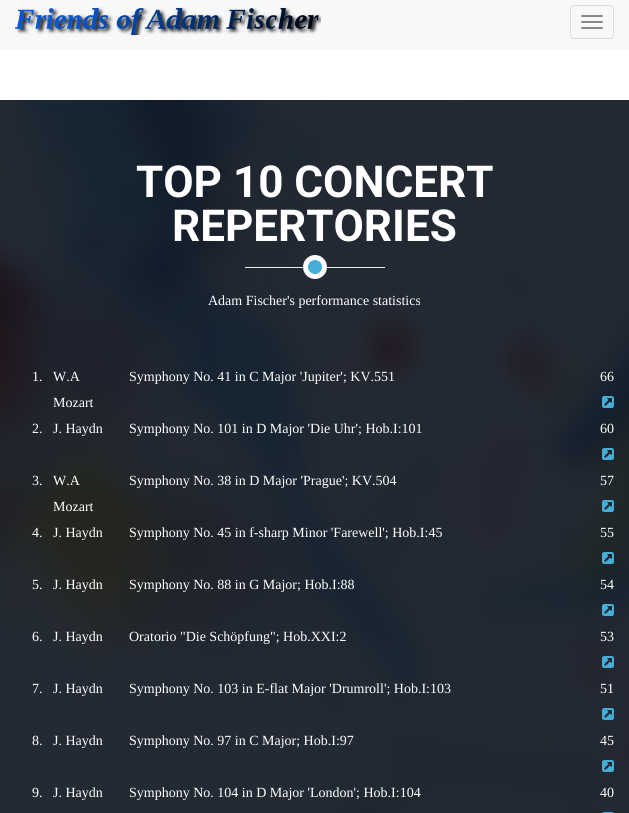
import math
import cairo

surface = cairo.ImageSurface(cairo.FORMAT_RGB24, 629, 813)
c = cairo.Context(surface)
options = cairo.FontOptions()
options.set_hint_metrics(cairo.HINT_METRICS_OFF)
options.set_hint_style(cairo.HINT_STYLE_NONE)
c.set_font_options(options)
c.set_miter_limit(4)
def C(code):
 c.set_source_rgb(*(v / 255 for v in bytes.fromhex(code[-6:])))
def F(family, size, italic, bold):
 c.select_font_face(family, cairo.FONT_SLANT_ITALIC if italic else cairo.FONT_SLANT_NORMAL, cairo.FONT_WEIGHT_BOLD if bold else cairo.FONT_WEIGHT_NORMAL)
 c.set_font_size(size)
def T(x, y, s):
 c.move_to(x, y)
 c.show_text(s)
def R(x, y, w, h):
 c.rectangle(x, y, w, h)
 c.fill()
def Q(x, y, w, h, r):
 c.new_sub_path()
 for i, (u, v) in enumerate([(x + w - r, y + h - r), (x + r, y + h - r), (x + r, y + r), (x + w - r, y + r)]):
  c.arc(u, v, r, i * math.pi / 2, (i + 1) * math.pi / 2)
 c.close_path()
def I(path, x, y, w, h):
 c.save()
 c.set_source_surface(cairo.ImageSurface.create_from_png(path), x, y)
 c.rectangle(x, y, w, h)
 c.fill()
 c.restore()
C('ffffff')
c.paint()
C('f8f8f8')
R(0,0,629,50)
I('1.png',15,7,306,28)
Q(570.5,5.5,43,33,3.5)
C('dddddd')
c.set_line_width(1)
c.stroke()
C('888888')
Q(581,15,22,2,1)
c.fill()
Q(581,21,22,2,1)
c.fill()
Q(581,27,22,2,1)
c.fill()
I('2.png',0,100,629,713)
F('Roboto',44,0,1)
C('ffffff')
T(136,197,'TOP 10 CONCERT')
T(172,241,'REPERTORIES')
C('ebebeb')
R(245,267,140,1)
C('45aed6')
c.new_path()
c.arc(315,267,9.5,0,2 * math.pi)
c.fill_preserve()
C('ffffff')
c.set_line_width(5)
c.stroke()
F('Liberation Serif',14,0,0)
T(208,305,'Adam Fischer\'s performance statistics')
T(32,381,'1.')
T(53,381,'W.A')
T(53,407,'Mozart')
T(129,381,'Symphony No. 41 in C Major \'Jupiter\'; KV.551')
T(600,381,'66')
I('3.png',602,396,12,12)
T(32,433,'2.')
T(53,433,'J. Haydn')
T(129,433,'Symphony No. 101 in D Major \'Die Uhr\'; Hob.I:101')
T(600,433,'60')
I('4.png',602,448,12,12)
T(32,485,'3.')
T(53,485,'W.A')
T(53,511,'Mozart')
T(129,485,'Symphony No. 38 in D Major \'Prague\'; KV.504')
T(600,485,'57')
I('5.png',602,500,12,12)
T(32,537,'4.')
T(53,537,'J. Haydn')
T(129,537,'Symphony No. 45 in f-sharp Minor \'Farewell\'; Hob.I:45')
T(600,537,'55')
I('6.png',602,552,12,12)
T(32,589,'5.')
T(53,589,'J. Haydn')
T(129,589,'Symphony No. 88 in G Major; Hob.I:88')
T(600,589,'54')
I('7.png',602,604,12,12)
T(32,641,'6.')
T(53,641,'J. Haydn')
T(129,641,'Oratorio "Die Schöpfung"; Hob.XXI:2')
T(600,641,'53')
I('8.png',602,656,12,12)
T(32,693,'7.')
T(53,693,'J. Haydn')
T(129,693,'Symphony No. 103 in E-flat Major \'Drumroll\'; Hob.I:103')
T(600,693,'51')
I('9.png',602,708,12,12)
T(32,745,'8.')
T(53,745,'J. Haydn')
T(129,745,'Symphony No. 97 in C Major; Hob.I:97')
T(600,745,'45')
I('10.png',602,760,12,12)
T(32,797,'9.')
T(53,797,'J. Haydn')
T(129,797,'Symphony No. 104 in D Major \'London\'; Hob.I:104')
T(600,797,'40')
I('11.png',602,812,12,1)
surface.write_to_png('o.png')
